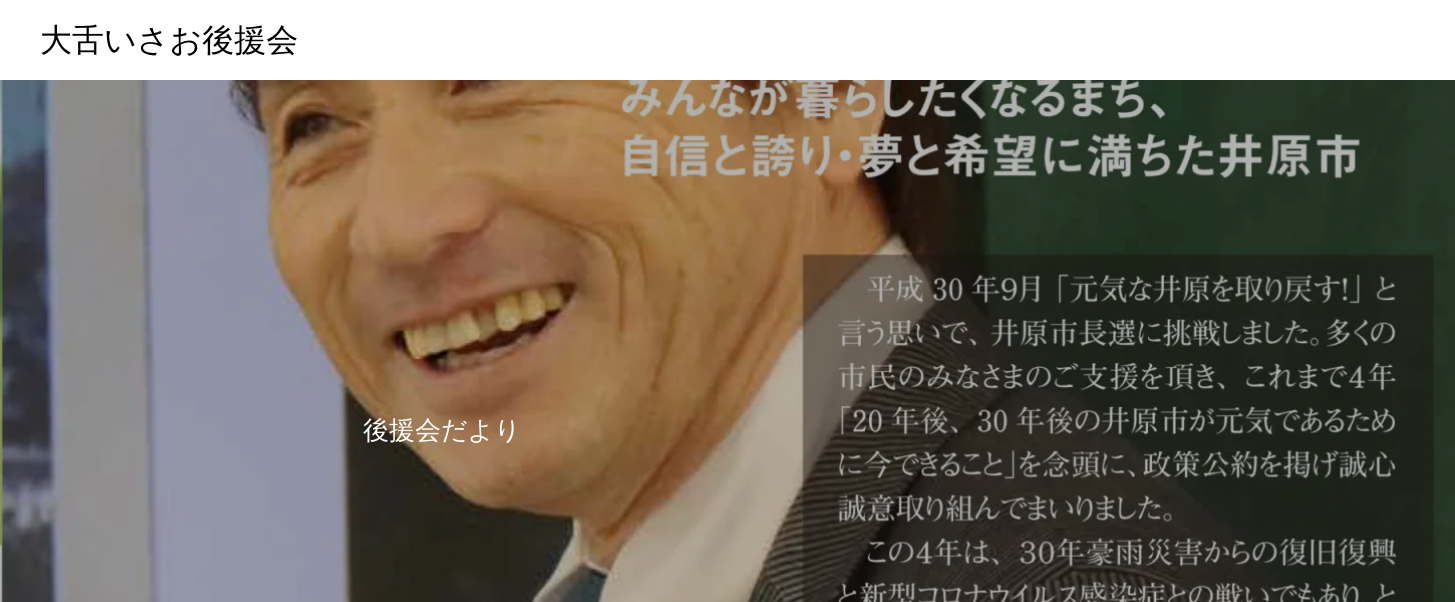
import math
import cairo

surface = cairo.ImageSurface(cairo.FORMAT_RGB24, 1455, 602)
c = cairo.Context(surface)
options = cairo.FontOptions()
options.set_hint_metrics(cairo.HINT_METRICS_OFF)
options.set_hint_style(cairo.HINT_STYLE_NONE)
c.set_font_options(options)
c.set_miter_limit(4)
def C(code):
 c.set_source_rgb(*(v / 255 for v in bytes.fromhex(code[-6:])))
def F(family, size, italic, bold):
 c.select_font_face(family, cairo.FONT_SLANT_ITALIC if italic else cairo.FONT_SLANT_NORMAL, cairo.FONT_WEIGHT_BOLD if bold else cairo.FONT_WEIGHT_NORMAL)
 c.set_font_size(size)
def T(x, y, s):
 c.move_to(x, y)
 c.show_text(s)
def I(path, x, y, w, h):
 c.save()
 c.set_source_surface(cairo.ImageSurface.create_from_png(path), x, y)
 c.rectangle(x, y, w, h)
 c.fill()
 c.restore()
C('ffffff')
c.paint()
F('WenQuanYi Zen Hei Medium',32,0,0)
C('000000')
T(40,51,'大舌いさお後援会')
I('1.png',0,80,1455,522)
F('WenQuanYi Zen Hei Medium',26,0,0)
C('ffffff')
T(363,439,'後援会だより')
surface.write_to_png('o.png')
